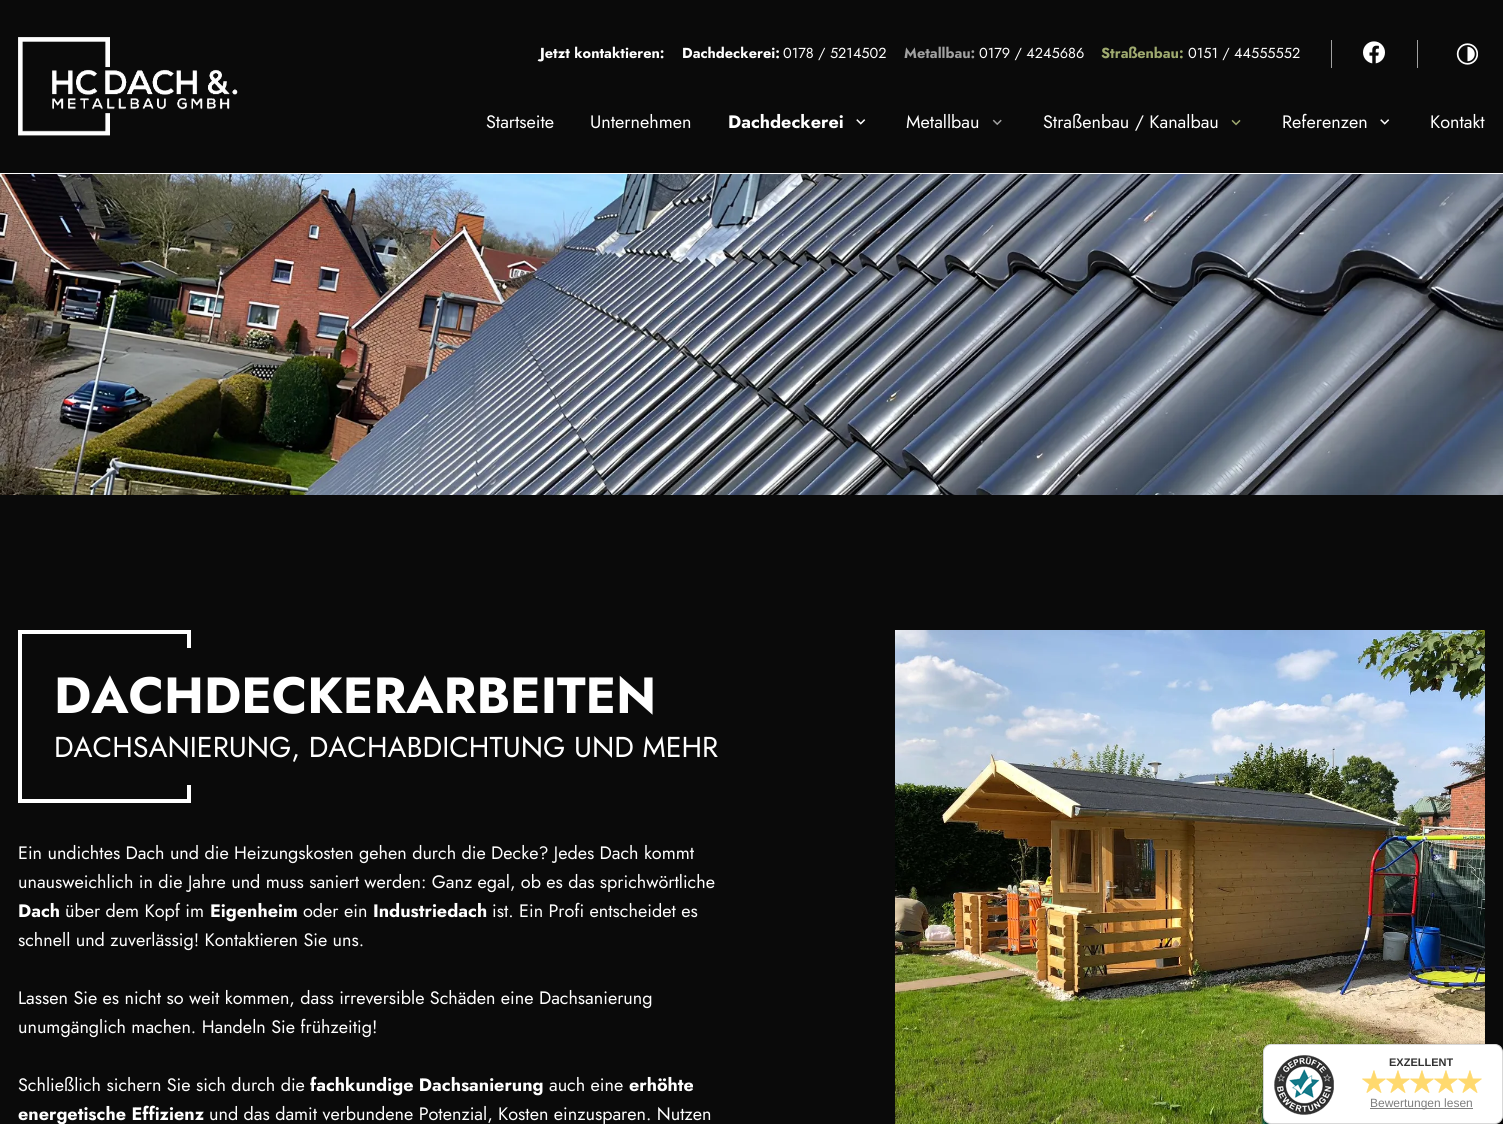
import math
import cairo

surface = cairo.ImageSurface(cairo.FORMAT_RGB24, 1503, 1124)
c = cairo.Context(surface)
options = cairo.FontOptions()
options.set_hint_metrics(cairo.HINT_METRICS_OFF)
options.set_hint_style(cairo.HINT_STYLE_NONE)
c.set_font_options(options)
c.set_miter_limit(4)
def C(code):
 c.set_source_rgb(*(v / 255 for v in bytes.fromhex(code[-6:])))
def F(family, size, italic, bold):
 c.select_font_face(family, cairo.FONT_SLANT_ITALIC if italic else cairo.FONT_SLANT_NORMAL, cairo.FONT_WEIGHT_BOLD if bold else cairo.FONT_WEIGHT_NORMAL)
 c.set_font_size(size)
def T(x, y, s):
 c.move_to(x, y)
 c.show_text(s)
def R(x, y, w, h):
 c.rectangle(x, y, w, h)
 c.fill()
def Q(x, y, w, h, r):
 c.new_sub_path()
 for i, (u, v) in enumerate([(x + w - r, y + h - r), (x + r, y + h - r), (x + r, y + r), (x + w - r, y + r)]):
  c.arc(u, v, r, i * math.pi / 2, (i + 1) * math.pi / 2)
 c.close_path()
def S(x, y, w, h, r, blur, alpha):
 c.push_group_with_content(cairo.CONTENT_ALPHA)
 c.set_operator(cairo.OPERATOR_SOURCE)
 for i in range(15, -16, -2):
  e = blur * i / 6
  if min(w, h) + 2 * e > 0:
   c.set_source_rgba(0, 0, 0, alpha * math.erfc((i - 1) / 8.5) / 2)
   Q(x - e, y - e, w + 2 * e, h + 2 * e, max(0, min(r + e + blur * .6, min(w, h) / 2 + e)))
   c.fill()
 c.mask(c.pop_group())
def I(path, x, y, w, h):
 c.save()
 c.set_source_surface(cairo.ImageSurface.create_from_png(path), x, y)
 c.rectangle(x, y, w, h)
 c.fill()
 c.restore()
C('0a0a0a')
c.paint()
C('ffffff')
R(0,173,1503,1)
I('1.png',18,37,220,99)
F('Jost',14.5,0,1)
T(540,58,'Jetzt kontaktieren:')
T(682,58,'Dachdeckerei:')
F('Jost',14.5,0,0)
T(783,58,'0178 / 5214502')
F('Jost',14.5,0,1)
C('a1a1a1')
T(904,58,'Metallbau:')
F('Jost',14.5,0,0)
C('ffffff')
T(979,58,'0179 / 4245686')
F('Jost',14.5,0,1)
C('9faa6f')
T(1101,58,'Straßenbau:')
F('Jost',14.5,0,0)
C('ffffff')
T(1188,58,'0151 / 44555552')
C('a1a1a1')
R(1331,40,1,28)
I('2.png',1363,41,22,23)
R(1417,40,1,28)
I('3.png',1456,43,22,22)
F('Jost',18,0,0)
C('ffffff')
T(486,128,'Startseite')
T(590,128,'Unternehmen')
F('Jost',18,0,1)
T(728,128,'Dachdeckerei')
I('4.png',856,119,10,6)
F('Jost',18,0,0)
T(906,128,'Metallbau')
I('5.png',992,119,10,7)
T(1043,128,'Straßenbau / Kanalbau')
I('6.png',1231,119,10,7)
T(1282,128,'Referenzen')
I('7.png',1380,119,10,6)
T(1430,128,'Kontakt')
I('8.png',0,174,1503,321)
I('9.png',895,630,590,494)
F('Liberation Sans',36,0,0)
C('181b10')
T(1438,674,'+')
c.rectangle(20,632,169,169)
C('ffffff')
c.set_line_width(4)
c.stroke()
C('0a0a0a')
R(187,648,4,137)
F('Jost',50.75,0,1)
C('ffffff')
T(54,713,'DACHDECKERARBEITEN')
F('Jost',28.75,0,0)
T(54,757,'DACHSANIERUNG, DACHABDICHTUNG UND MEHR')
F('Jost',18,0,0)
T(18,859,'Ein undichtes Dach und die Heizungskosten gehen durch die Decke? Jedes Dach kommt')
T(18,888,'unausweichlich in die Jahre und muss saniert werden: Ganz egal, ob es das sprichwörtliche')
F('Jost',18,0,1)
T(18,917,'Dach')
F('Jost',18,0,0)
T(65,917,'über dem Kopf im')
F('Jost',18,0,1)
T(210,917,'Eigenheim')
F('Jost',18,0,0)
T(303,917,'oder ein')
F('Jost',18,0,1)
T(373,917,'Industriedach')
F('Jost',18,0,0)
T(492,917,'ist. Ein Profi entscheidet es')
T(18,946,'schnell und zuverlässig! Kontaktieren Sie uns.')
T(18,1004,'Lassen Sie es nicht so weit kommen, dass irreversible Schäden eine Dachsanierung')
T(18,1033,'unumgänglich machen. Handeln Sie frühzeitig!')
T(18,1091,'Schließlich sichern Sie sich durch die')
F('Jost',18,0,1)
T(310,1091,'fachkundige Dachsanierung')
F('Jost',18,0,0)
T(549,1091,'auch eine')
F('Jost',18,0,1)
T(629,1091,'erhöhte')
T(18,1120,'energetische Effizienz')
F('Jost',18,0,0)
T(209,1120,'und das damit verbundene Potenzial, Kosten einzusparen. Nutzen')
C('000000')
S(1265,1046,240,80,8,2.5,.5)
C('ffffff')
Q(1263.5,1044.5,239,79,7.5)
c.fill_preserve()
C('d8d8d8')
c.set_line_width(1)
c.stroke()
I('10.png',1274,1055,60,60)
F('Liberation Sans',11,0,1)
C('313131')
T(1389,1066,'EXZELLENT')
I('11.png',1362,1070,24,23)
I('11.png',1386,1070,24,23)
I('11.png',1410,1070,24,23)
I('11.png',1434,1070,24,23)
I('11.png',1458,1070,24,23)
C('7e7e7e')
R(1370,1108,103,1)
F('Liberation Sans',12,0,0)
T(1370,1107,'Bewertungen lesen')
surface.write_to_png('o.png')
